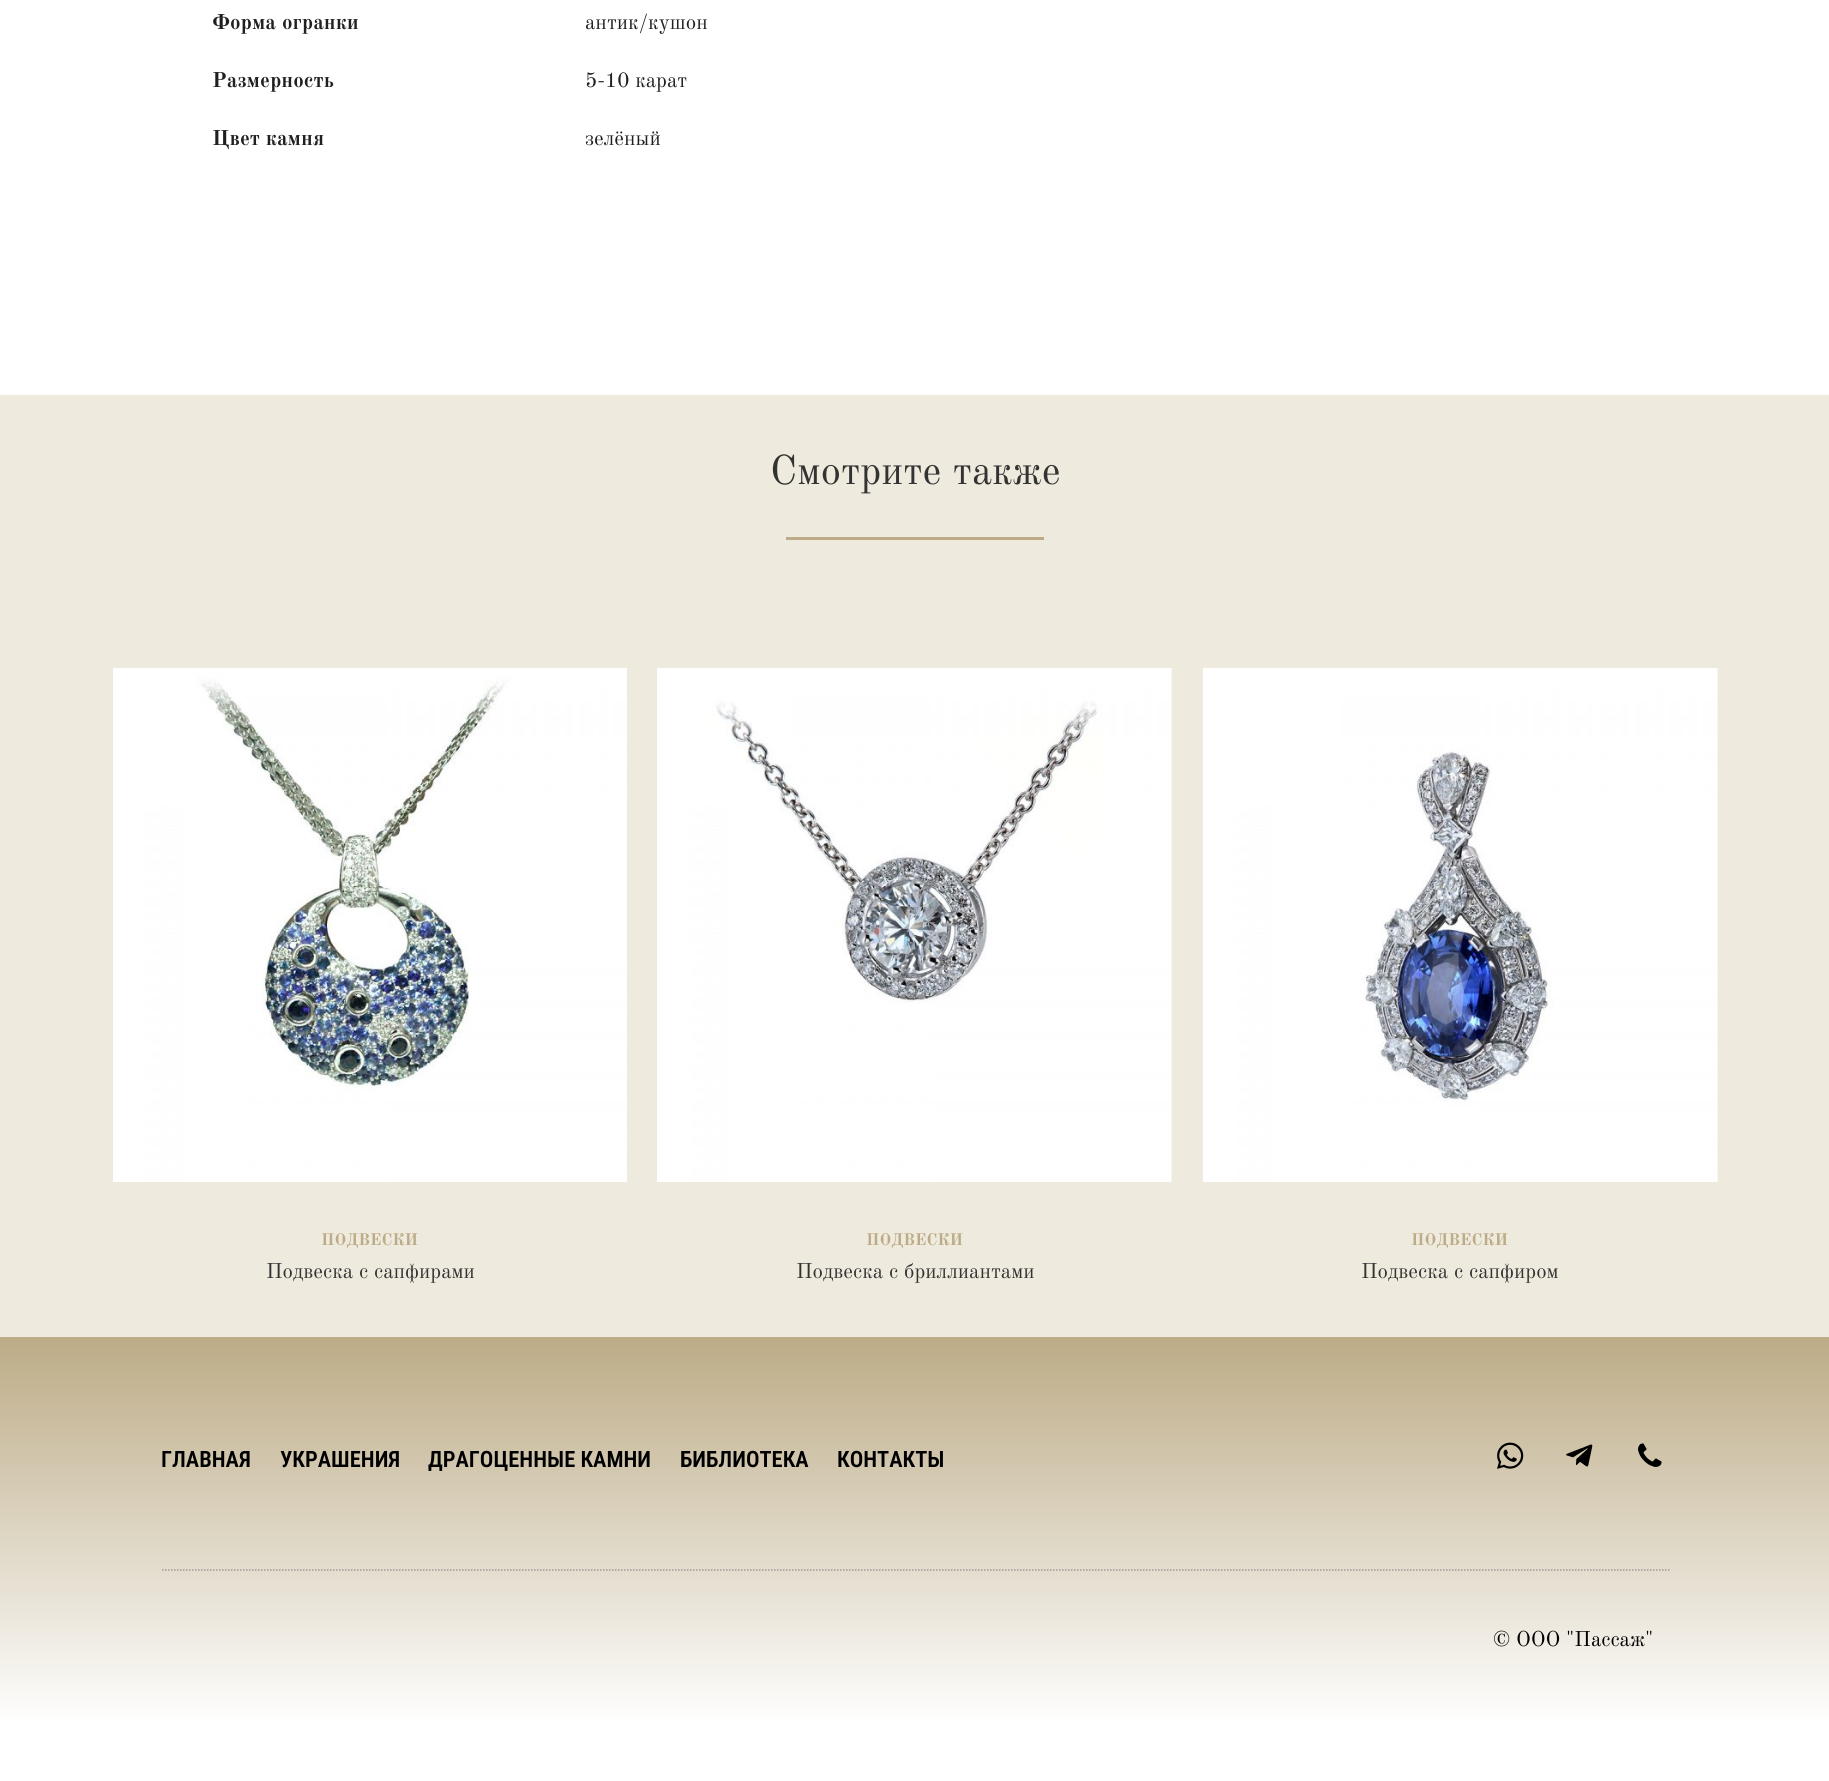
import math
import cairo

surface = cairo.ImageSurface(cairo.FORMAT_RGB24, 1829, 1781)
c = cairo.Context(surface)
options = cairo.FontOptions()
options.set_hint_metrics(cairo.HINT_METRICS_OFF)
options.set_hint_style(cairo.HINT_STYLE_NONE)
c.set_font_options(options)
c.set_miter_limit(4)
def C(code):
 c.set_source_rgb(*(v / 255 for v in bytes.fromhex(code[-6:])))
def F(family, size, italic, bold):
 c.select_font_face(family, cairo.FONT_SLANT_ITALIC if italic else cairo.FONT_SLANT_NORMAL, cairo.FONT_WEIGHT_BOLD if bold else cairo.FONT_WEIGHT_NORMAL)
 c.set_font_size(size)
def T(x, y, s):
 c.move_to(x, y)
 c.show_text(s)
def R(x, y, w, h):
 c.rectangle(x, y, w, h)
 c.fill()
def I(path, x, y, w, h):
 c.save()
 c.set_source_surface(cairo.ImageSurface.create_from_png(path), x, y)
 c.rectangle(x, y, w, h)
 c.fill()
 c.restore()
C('ffffff')
c.paint()
F('Old Standard TT',21,0,1)
C('202020')
T(212,29,'Форма огранки')
F('Old Standard TT',21,0,0)
T(585,29,'антик/кушон')
F('Old Standard TT',21,0,1)
T(212,87,'Размерность')
F('Old Standard TT',21,0,0)
T(585,87,'5-10 карат')
F('Old Standard TT',21,0,1)
T(212,145,'Цвет камня')
F('Old Standard TT',21,0,0)
T(585,145,'зелёный')
C('efeade')
R(0,395,1829,942)
F('Old Standard TT',40.75,0,0)
C('333333')
T(770,484,'Смотрите также')
C('bcab86')
R(786,537,258,3)
I('1.png',113,668,514,514)
F('Old Standard TT',16.5,0,1)
T(321,1245,'ПОДВЕСКИ')
F('Old Standard TT',21,0,0)
C('333333')
T(266,1278,'Подвеска с сапфирами')
I('2.png',657,668,515,514)
F('Old Standard TT',16.5,0,1)
C('bcab86')
T(866,1245,'ПОДВЕСКИ')
F('Old Standard TT',21,0,0)
C('333333')
T(796,1278,'Подвеска с бриллиантами')
I('3.png',1203,668,515,514)
F('Old Standard TT',16.5,0,1)
C('bcab86')
T(1411,1245,'ПОДВЕСКИ')
F('Old Standard TT',21,0,0)
C('333333')
T(1361,1278,'Подвеска с сапфиром')
gradient = cairo.LinearGradient(915,1336,915,1727)
gradient.add_color_stop_rgba(0,0.737,0.671,0.525,1)
gradient.add_color_stop_rgba(1,1,1,1,1)
c.set_source(gradient)
R(0,1337,1829,382)
c.new_path()
c.move_to(162,1570)
c.line_to(1669.5,1570)
C('9b9b9b')
c.set_line_width(1.5)
c.set_dash([1.5,1.5])
c.stroke()
F('Roboto Condensed SemiBold',22.5,0,0)
C('000000')
T(161,1467,'ГЛАВНАЯ')
T(280,1467,'УКРАШЕНИЯ')
T(428,1467,'ДРАГОЦЕННЫЕ КАМНИ')
T(680,1467,'БИБЛИОТЕКА')
T(837,1467,'КОНТАКТЫ')
I('4.png',1497,1442,27,27)
I('5.png',1566,1444,27,23)
I('6.png',1638,1443,24,24)
F('Old Standard TT',21,0,0)
T(1493,1646,'© ООО "Пассаж"')
surface.write_to_png('o.png')
